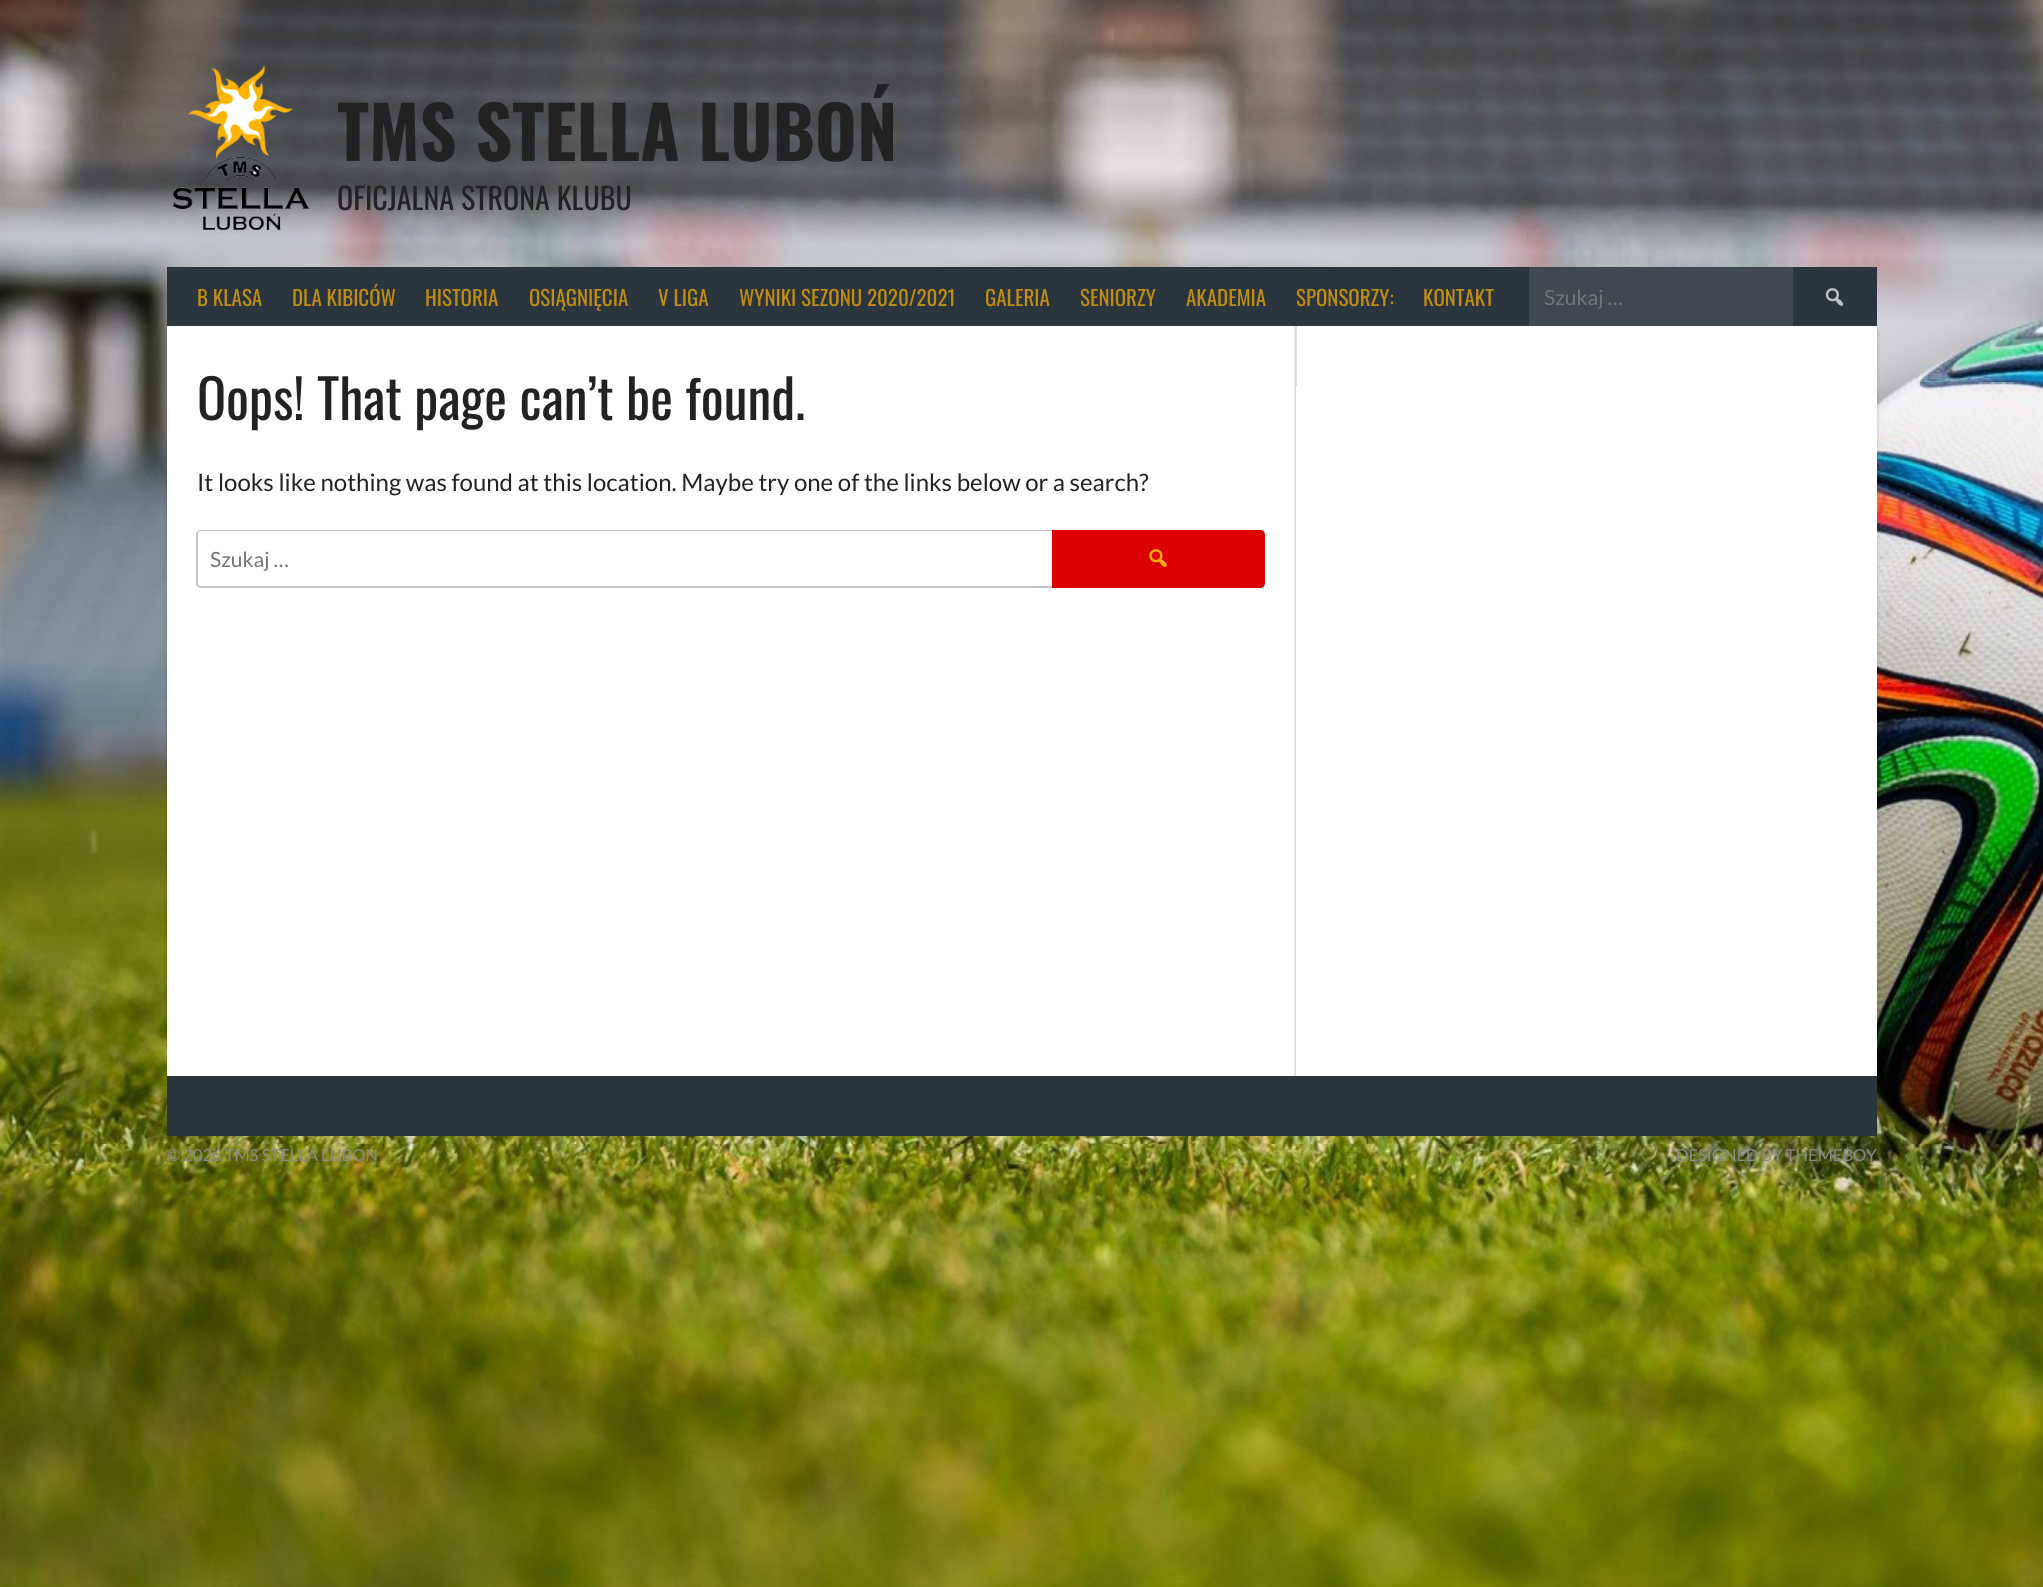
import math
import cairo

surface = cairo.ImageSurface(cairo.FORMAT_RGB24, 2043, 1587)
c = cairo.Context(surface)
options = cairo.FontOptions()
options.set_hint_metrics(cairo.HINT_METRICS_OFF)
options.set_hint_style(cairo.HINT_STYLE_NONE)
c.set_font_options(options)
c.set_miter_limit(4)
def C(code):
 c.set_source_rgb(*(v / 255 for v in bytes.fromhex(code[-6:])))
def F(family, size, italic, bold):
 c.select_font_face(family, cairo.FONT_SLANT_ITALIC if italic else cairo.FONT_SLANT_NORMAL, cairo.FONT_WEIGHT_BOLD if bold else cairo.FONT_WEIGHT_NORMAL)
 c.set_font_size(size)
def T(x, y, s):
 c.move_to(x, y)
 c.show_text(s)
def R(x, y, w, h):
 c.rectangle(x, y, w, h)
 c.fill()
def Q(x, y, w, h, r):
 c.new_sub_path()
 for i, (u, v) in enumerate([(x + w - r, y + h - r), (x + r, y + h - r), (x + r, y + r), (x + w - r, y + r)]):
  c.arc(u, v, r, i * math.pi / 2, (i + 1) * math.pi / 2)
 c.close_path()
def S(x, y, w, h, r, blur, alpha):
 c.push_group_with_content(cairo.CONTENT_ALPHA)
 c.set_operator(cairo.OPERATOR_SOURCE)
 for i in range(15, -16, -2):
  e = blur * i / 6
  if min(w, h) + 2 * e > 0:
   c.set_source_rgba(0, 0, 0, alpha * math.erfc((i - 1) / 8.5) / 2)
   Q(x - e, y - e, w + 2 * e, h + 2 * e, max(0, min(r + e + blur * .6, min(w, h) / 2 + e)))
   c.fill()
 c.mask(c.pop_group())
def I(path, x, y, w, h):
 c.save()
 c.set_source_surface(cairo.ImageSurface.create_from_png(path), x, y)
 c.rectangle(x, y, w, h)
 c.fill()
 c.restore()
C('ffffff')
c.paint()
I('1.png',0,0,2043,1587)
I('2.png',172,65,138,166)
c.save()
c.rectangle(338,84,1539,135)
c.clip()
F('Oswald',72,0,1)
C('222222')
T(337,161,'TMS STELLA LUBOŃ')
c.restore()
F('Oswald',30,0,0)
C('222222')
T(337,210,'OFICJALNA STRONA KLUBU')
C('000000')
S(167,330,1710,750,0,2,.2)
C('2b353e')
R(167,267,1710,59)
F('Oswald',21,0,0)
C('bf8d13')
T(197,306,'B KLASA')
T(292,306,'DLA KIBICÓW')
T(425,306,'HISTORIA')
T(529,306,'OSIĄGNIĘCIA')
T(658,306,'V LIGA')
T(739,306,'WYNIKI SEZONU 2020/2021')
T(985,306,'GALERIA')
T(1080,306,'SENIORZY')
T(1186,306,'AKADEMIA')
T(1296,306,'SPONSORZY:')
T(1423,306,'KONTAKT')
C('404951')
R(1529,267,264,59)
F('Lato',21,0,0)
C('757575')
T(1544,305,'Szukaj …')
I('3.png',1825,288,19,18)
C('ffffff')
R(167,326,1710,750)
C('e0e0e0')
R(1296,326,1,60)
c.new_path()
c.move_to(168,1076)
c.line_to(1296,1076)
c.line_to(1296,326)
c.line_to(1294,326)
c.line_to(1294,1076)
c.close_path()
c.fill()
F('Oswald',54,0,0)
C('222222')
T(197,420,'Oops! That page can’t be found.')
F('Lato',24,0,0)
T(197,491,'It looks like nothing was found at this location. Maybe try one of the links below or a search?')
C('c4c4c4')
c.set_fill_rule(cairo.FILL_RULE_EVEN_ODD)
c.new_path()
c.move_to(201,530)
c.line_to(1052,530)
c.line_to(1052,588)
c.line_to(201,588)
c.curve_to(199,588,196,586,196,584)
c.line_to(196,534)
c.curve_to(196,532,199,530,201,530)
c.close_path()
c.move_to(201,531)
c.line_to(1052,531)
c.line_to(1052,586)
c.line_to(201,586)
c.curve_to(199,586,198,585,198,584)
c.line_to(198,534)
c.curve_to(198,532,199,531,201,531)
c.close_path()
c.fill()
F('Lato',21,0,0)
C('757575')
T(210,567,'Szukaj …')
C('dd0000')
c.new_path()
c.move_to(1052,530)
c.line_to(1260,530)
c.curve_to(1263,530,1265,532,1265,535)
c.line_to(1265,583)
c.curve_to(1265,586,1263,588,1260,588)
c.line_to(1052,588)
c.close_path()
c.fill()
I('4.png',1149,549,18,18)
C('2b353e')
R(167,1076,1710,60)
F('Lato',16.5,0,0)
C('8b8b8b')
T(167,1161,'© 2026 TMS STELLA LUBOŃ')
T(1676,1161,'DESIGNED BY THEMEBOY')
surface.write_to_png('o.png')
